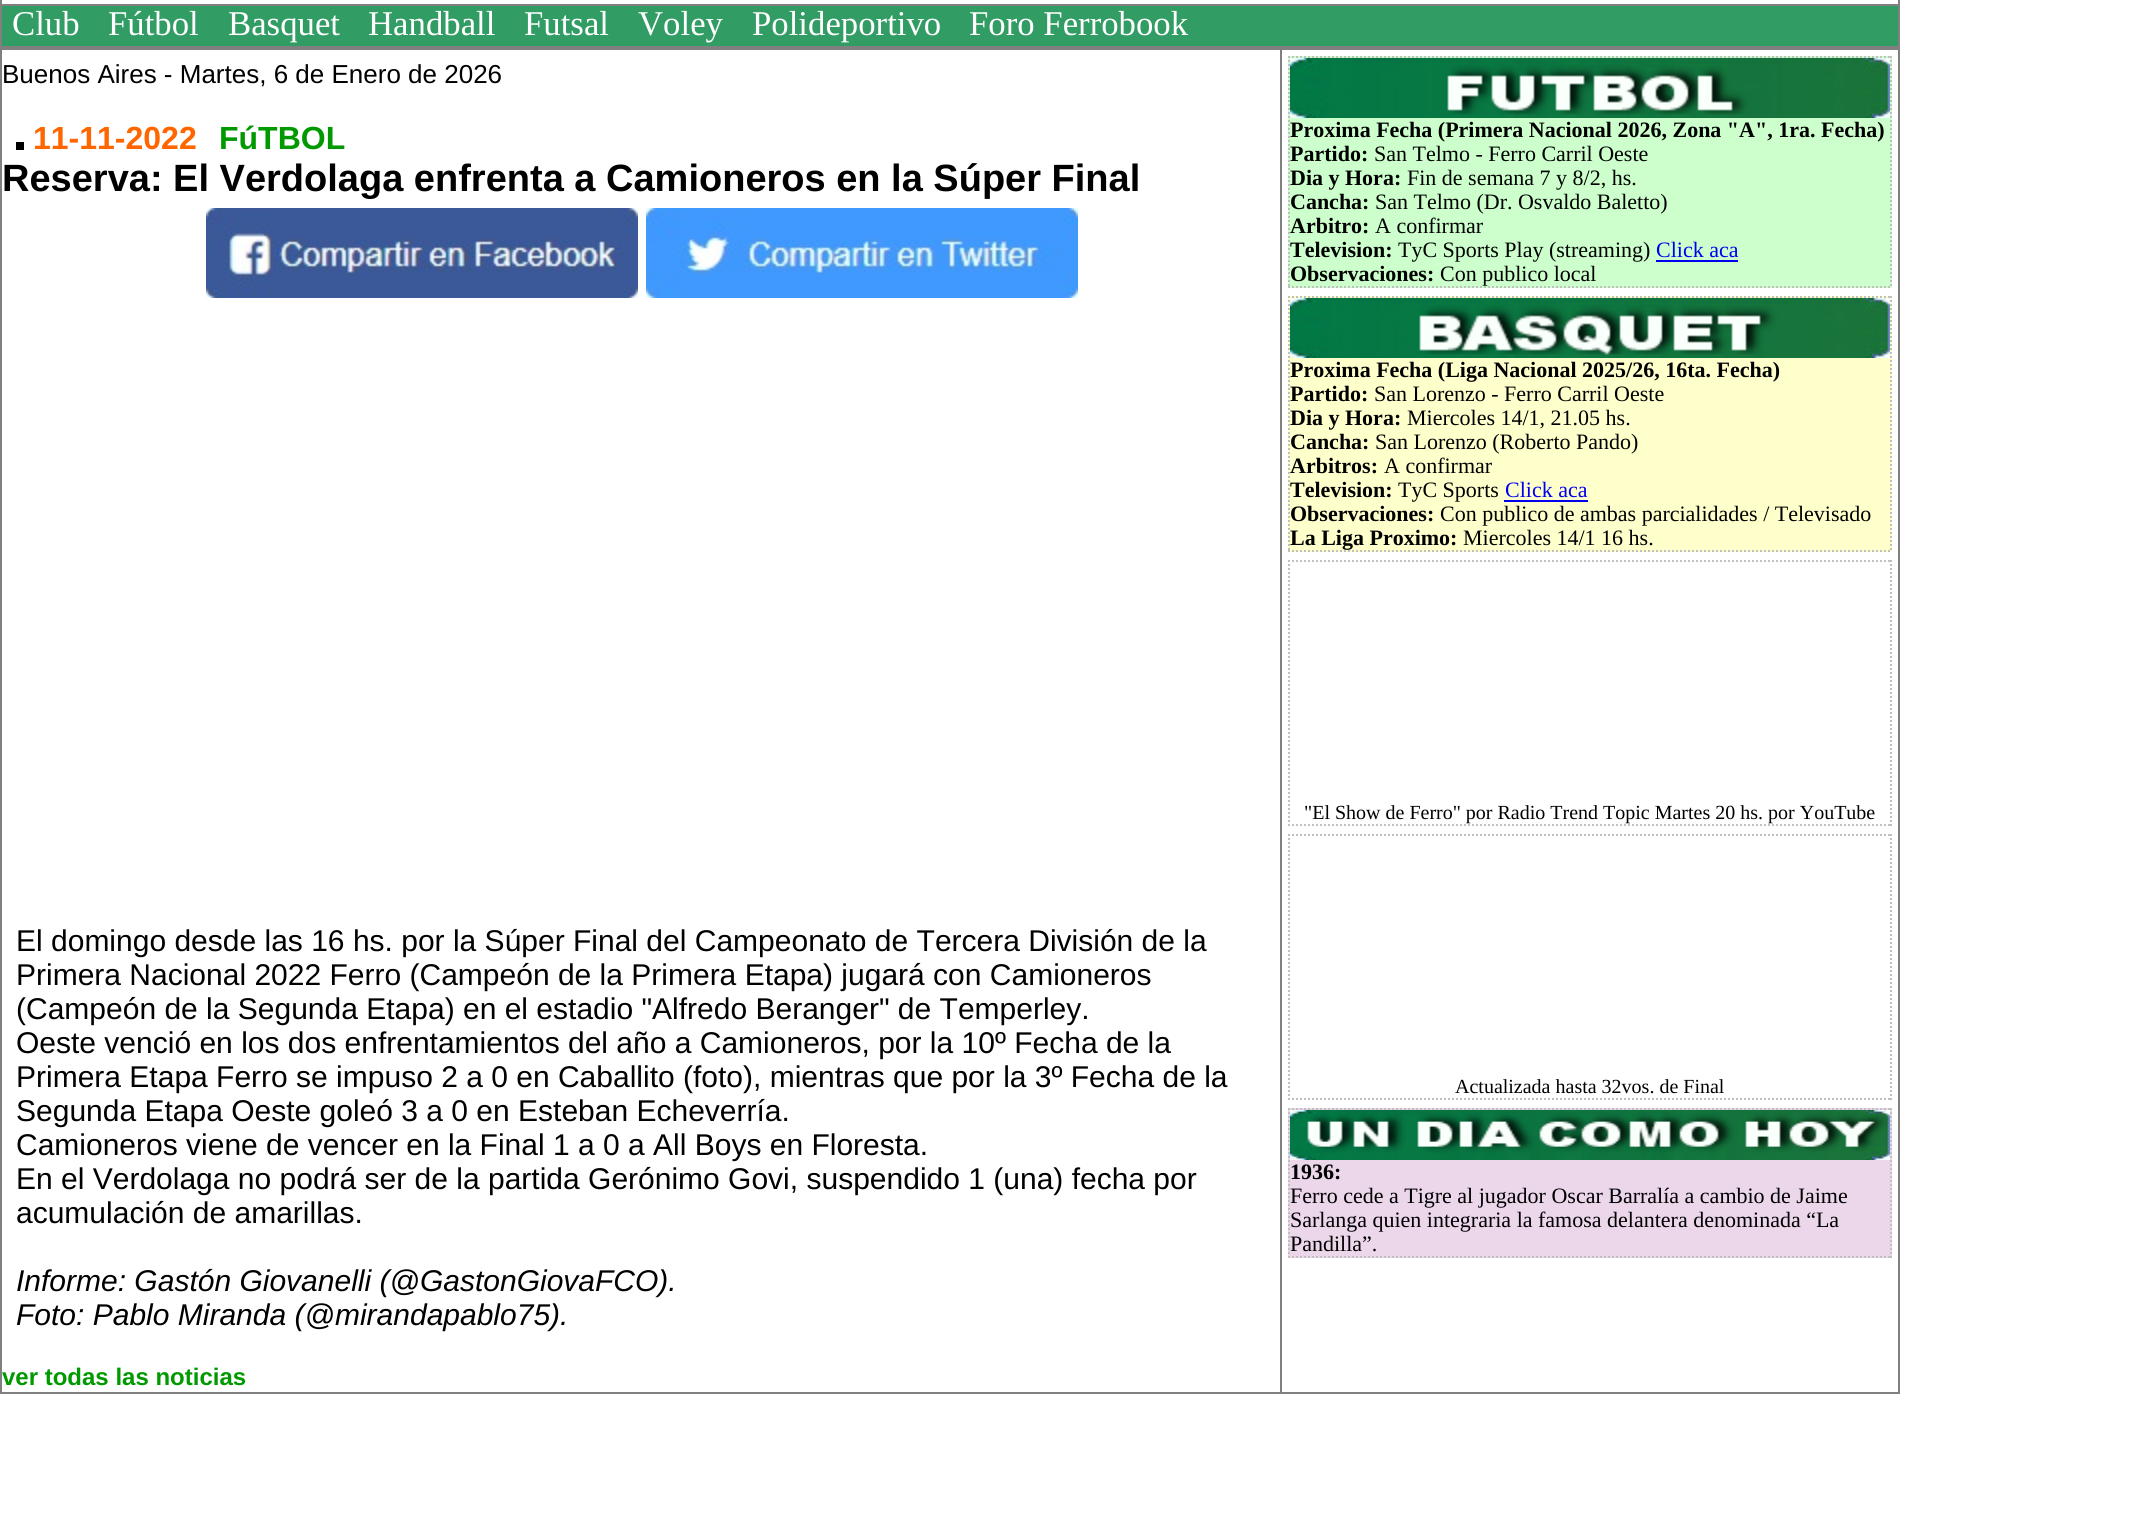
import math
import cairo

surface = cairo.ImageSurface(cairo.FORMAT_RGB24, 2139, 1520)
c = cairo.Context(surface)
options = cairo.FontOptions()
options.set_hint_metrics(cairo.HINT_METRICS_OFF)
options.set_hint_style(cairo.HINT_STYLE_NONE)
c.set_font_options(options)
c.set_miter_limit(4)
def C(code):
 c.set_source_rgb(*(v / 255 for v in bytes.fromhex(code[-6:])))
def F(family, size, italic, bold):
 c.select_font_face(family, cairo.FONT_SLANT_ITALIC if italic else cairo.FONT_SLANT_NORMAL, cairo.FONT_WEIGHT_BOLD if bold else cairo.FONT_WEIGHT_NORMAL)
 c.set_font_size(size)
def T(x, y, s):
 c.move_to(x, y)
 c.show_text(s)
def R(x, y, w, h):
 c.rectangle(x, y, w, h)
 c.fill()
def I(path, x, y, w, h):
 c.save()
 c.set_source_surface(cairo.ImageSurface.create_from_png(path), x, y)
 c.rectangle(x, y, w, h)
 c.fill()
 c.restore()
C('ffffff')
c.paint()
C('808080')
R(1898,0,2,1394)
R(0,1392,1900,2)
R(0,0,2,1394)
C('319c63')
R(2,6,1896,40)
C('808080')
R(0,4,1900,2)
F('Liberation Serif',34.75,0,0)
C('ffffff')
T(12,35,'Club')
T(108,35,'Fútbol')
T(228,35,'Basquet')
T(368,35,'Handball')
T(524,35,'Futsal')
T(638,35,'Voley')
T(752,35,'Polideportivo')
T(969,35,'Foro Ferrobook')
C('808080')
R(0,46,1900,2)
R(1280,48,620,2)
R(1280,48,2,1346)
R(0,48,1282,2)
F('Liberation Sans',26,0,0)
C('000000')
T(2,83,'Buenos Aires - Martes, 6 de Enero de 2026')
R(16,142,8,8)
F('Liberation Sans',32,0,1)
C('ff6600')
T(33,149,'11-11-2022')
C('009900')
T(219,149,'FúTBOL')
F('Liberation Sans',38,0,1)
C('000000')
T(2,191,'Reserva: El Verdolaga enfrenta a Camioneros en la Súper Final')
I('1.png',206,208,432,90)
I('2.png',646,208,432,90)
F('Liberation Sans',30,0,0)
T(16,951,'El domingo desde las 16 hs. por la Súper Final del Campeonato de Tercera División de la')
T(16,985,'Primera Nacional 2022 Ferro (Campeón de la Primera Etapa) jugará con Camioneros')
T(16,1019,'(Campeón de la Segunda Etapa) en el estadio "Alfredo Beranger" de Temperley.')
T(16,1053,'Oeste venció en los dos enfrentamientos del año a Camioneros, por la 10º Fecha de la')
T(16,1087,'Primera Etapa Ferro se impuso 2 a 0 en Caballito (foto), mientras que por la 3º Fecha de la')
T(16,1121,'Segunda Etapa Oeste goleó 3 a 0 en Esteban Echeverría.')
T(16,1155,'Camioneros viene de vencer en la Final 1 a 0 a All Boys en Floresta.')
T(16,1189,'En el Verdolaga no podrá ser de la partida Gerónimo Govi, suspendido 1 (una) fecha por')
T(16,1223,'acumulación de amarillas.')
F('Liberation Sans',30,1,0)
T(16,1291,'Informe: Gastón Giovanelli (@GastonGiovaFCO).')
T(16,1325,'Foto: Pablo Miranda (@mirandapablo75).')
F('Liberation Sans',24,0,1)
C('009900')
T(2,1385,'ver todas las noticias')
C('ccffcc')
R(1288,56,604,232)
c.new_path()
c.move_to(1288,57)
c.line_to(1892,57)
C('c0c0c0')
c.set_dash([2,2])
c.stroke()
c.new_path()
c.move_to(1891,56)
c.line_to(1891,288)
c.stroke()
c.new_path()
c.move_to(1288,287)
c.line_to(1892,287)
c.stroke()
c.new_path()
c.move_to(1289,56)
c.line_to(1289,288)
c.stroke()
I('3.png',1290,58,600,60)
F('Liberation Serif',22,0,1)
C('000000')
T(1290,137,'Proxima Fecha (Primera Nacional 2026, Zona "A", 1ra. Fecha)')
T(1290,161,'Partido:')
F('Liberation Serif',22,0,0)
T(1374,161,'San Telmo - Ferro Carril Oeste')
F('Liberation Serif',22,0,1)
T(1290,185,'Dia y Hora:')
F('Liberation Serif',22,0,0)
T(1407,185,'Fin de semana 7 y 8/2, hs.')
F('Liberation Serif',22,0,1)
T(1290,209,'Cancha:')
F('Liberation Serif',22,0,0)
T(1375,209,'San Telmo (Dr. Osvaldo Baletto)')
F('Liberation Serif',22,0,1)
T(1290,233,'Arbitro:')
F('Liberation Serif',22,0,0)
T(1375,233,'A confirmar')
F('Liberation Serif',22,0,1)
T(1290,257,'Television:')
F('Liberation Serif',22,0,0)
T(1398,257,'TyC Sports Play (streaming)')
C('0000ee')
T(1656,257,'Click aca')
R(1656,260,82,2)
F('Liberation Serif',22,0,1)
C('000000')
T(1290,281,'Observaciones:')
F('Liberation Serif',22,0,0)
T(1440,281,'Con publico local')
C('ffffcc')
R(1288,296,604,256)
c.new_path()
c.move_to(1288,297)
c.line_to(1892,297)
C('c0c0c0')
c.stroke()
c.new_path()
c.move_to(1891,296)
c.line_to(1891,552)
c.stroke()
c.new_path()
c.move_to(1288,551)
c.line_to(1892,551)
c.stroke()
c.new_path()
c.move_to(1289,296)
c.line_to(1289,552)
c.stroke()
I('4.png',1290,298,600,60)
F('Liberation Serif',22,0,1)
C('000000')
T(1290,377,'Proxima Fecha (Liga Nacional 2025/26, 16ta. Fecha)')
T(1290,401,'Partido:')
F('Liberation Serif',22,0,0)
T(1374,401,'San Lorenzo - Ferro Carril Oeste')
F('Liberation Serif',22,0,1)
T(1290,425,'Dia y Hora:')
F('Liberation Serif',22,0,0)
T(1407,425,'Miercoles 14/1, 21.05 hs.')
F('Liberation Serif',22,0,1)
T(1290,449,'Cancha:')
F('Liberation Serif',22,0,0)
T(1375,449,'San Lorenzo (Roberto Pando)')
F('Liberation Serif',22,0,1)
T(1290,473,'Arbitros:')
F('Liberation Serif',22,0,0)
T(1384,473,'A confirmar')
F('Liberation Serif',22,0,1)
T(1290,497,'Television:')
F('Liberation Serif',22,0,0)
T(1398,497,'TyC Sports')
C('0000ee')
T(1505,497,'Click aca')
R(1504,500,84,2)
F('Liberation Serif',22,0,1)
C('000000')
T(1290,521,'Observaciones:')
F('Liberation Serif',22,0,0)
T(1440,521,'Con publico de ambas parcialidades / Televisado')
F('Liberation Serif',22,0,1)
T(1290,545,'La Liga Proximo:')
F('Liberation Serif',22,0,0)
T(1463,545,'Miercoles 14/1 16 hs.')
c.new_path()
c.move_to(1288,561)
c.line_to(1892,561)
C('c0c0c0')
c.stroke()
c.new_path()
c.move_to(1891,560)
c.line_to(1891,826)
c.stroke()
c.new_path()
c.move_to(1288,825)
c.line_to(1892,825)
c.stroke()
c.new_path()
c.move_to(1289,560)
c.line_to(1289,826)
c.stroke()
F('Liberation Serif',20,0,0)
C('000000')
T(1304,819,'"El Show de Ferro" por Radio Trend Topic Martes 20 hs. por YouTube')
c.new_path()
c.move_to(1288,835)
c.line_to(1892,835)
C('c0c0c0')
c.stroke()
c.new_path()
c.move_to(1891,834)
c.line_to(1891,1100)
c.stroke()
c.new_path()
c.move_to(1288,1099)
c.line_to(1892,1099)
c.stroke()
c.new_path()
c.move_to(1289,834)
c.line_to(1289,1100)
c.stroke()
C('000000')
T(1455,1093,'Actualizada hasta 32vos. de Final')
C('ebd6ea')
R(1288,1108,604,150)
c.new_path()
c.move_to(1288,1109)
c.line_to(1892,1109)
C('c0c0c0')
c.stroke()
c.new_path()
c.move_to(1891,1108)
c.line_to(1891,1258)
c.stroke()
c.new_path()
c.move_to(1288,1257)
c.line_to(1892,1257)
c.stroke()
c.new_path()
c.move_to(1289,1108)
c.line_to(1289,1258)
c.stroke()
I('5.png',1290,1110,600,50)
F('Liberation Serif',22,0,1)
C('000000')
T(1290,1179,'1936:')
F('Liberation Serif',22,0,0)
T(1290,1203,'Ferro cede a Tigre al jugador Oscar Barralía a cambio de Jaime')
T(1290,1227,'Sarlanga quien integraria la famosa delantera denominada “La')
T(1290,1251,'Pandilla”.')
surface.write_to_png('o.png')
